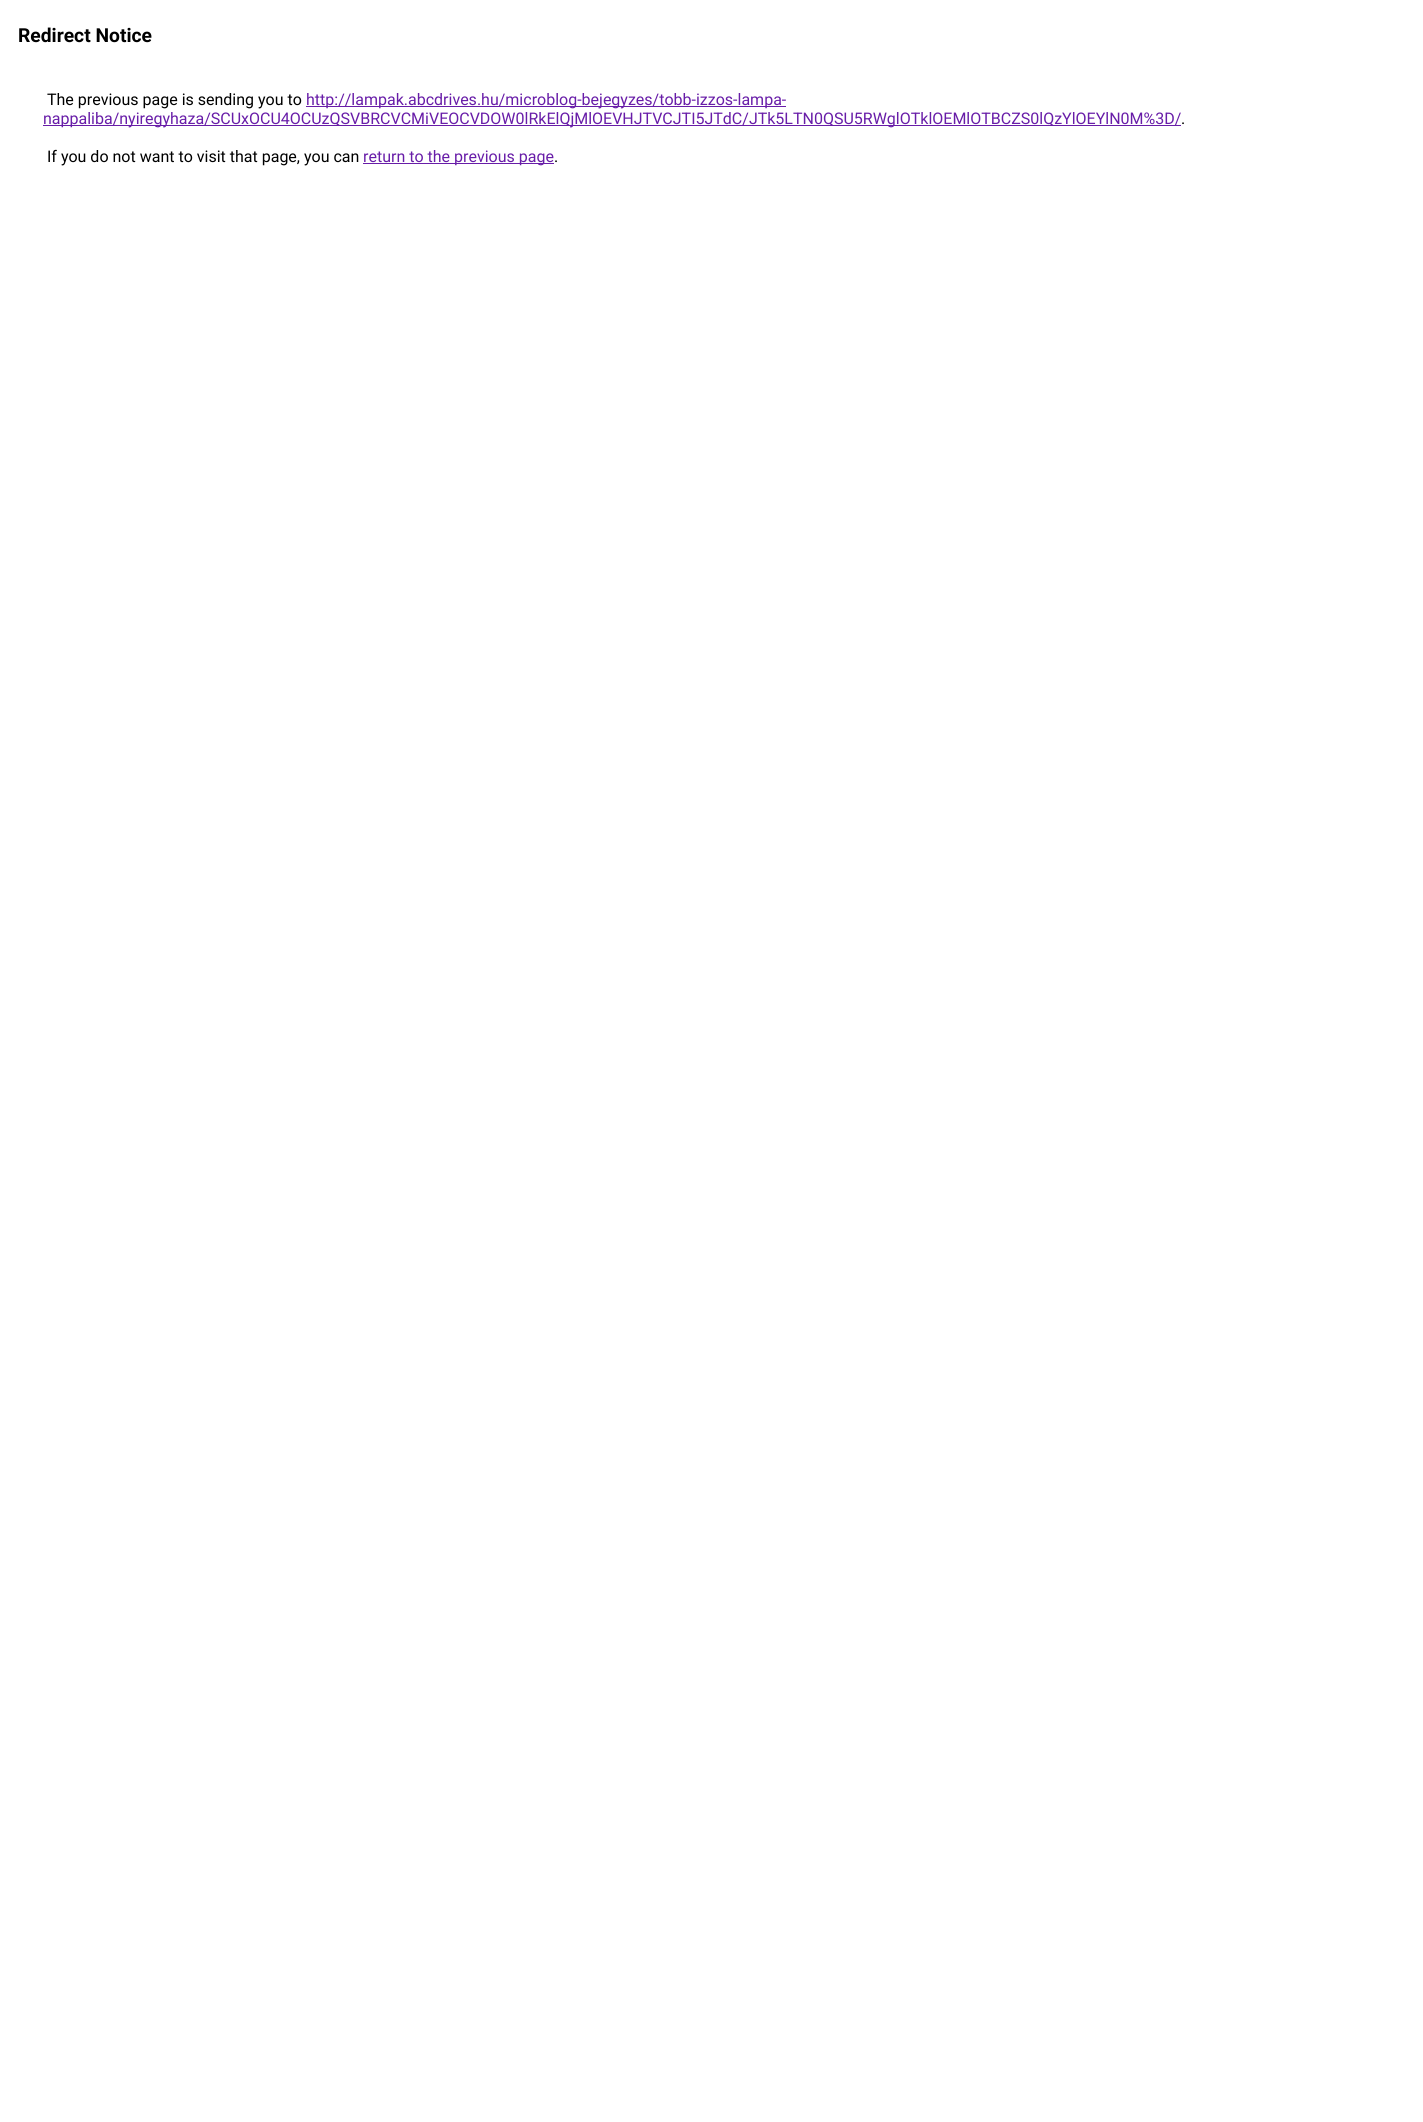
import math
import cairo

surface = cairo.ImageSurface(cairo.FORMAT_RGB24, 1423, 2122)
c = cairo.Context(surface)
options = cairo.FontOptions()
options.set_hint_metrics(cairo.HINT_METRICS_OFF)
options.set_hint_style(cairo.HINT_STYLE_NONE)
c.set_font_options(options)
c.set_miter_limit(4)
def C(code):
 c.set_source_rgb(*(v / 255 for v in bytes.fromhex(code[-6:])))
def F(family, size, italic, bold):
 c.select_font_face(family, cairo.FONT_SLANT_ITALIC if italic else cairo.FONT_SLANT_NORMAL, cairo.FONT_WEIGHT_BOLD if bold else cairo.FONT_WEIGHT_NORMAL)
 c.set_font_size(size)
def T(x, y, s):
 c.move_to(x, y)
 c.show_text(s)
def R(x, y, w, h):
 c.rectangle(x, y, w, h)
 c.fill()
C('ffffff')
c.paint()
F('Roboto',19.25,0,1)
C('000000')
T(18,42,'Redirect Notice')
F('Roboto',16,0,0)
T(47,105,'The previous page is sending you to')
C('681da8')
R(306,106,480,1)
T(306,105,'http://lampak.abcdrives.hu/microblog-bejegyzes/tobb-izzos-lampa-')
R(43,125,1138,1)
T(43,124,'nappaliba/nyiregyhaza/SCUxOCU4OCUzQSVBRCVCMiVEOCVDOW0lRkElQjMlOEVHJTVCJTI5JTdC/JTk5LTN0QSU5RWglOTklOEMlOTBCZS0lQzYlOEYlN0M%3D/')
C('000000')
T(1181,124,'.')
T(47,162,'If you do not want to visit that page, you can')
C('681da8')
R(363,163,191,1)
T(363,162,'return to the previous page')
C('000000')
T(554,162,'.')
surface.write_to_png('o.png')
